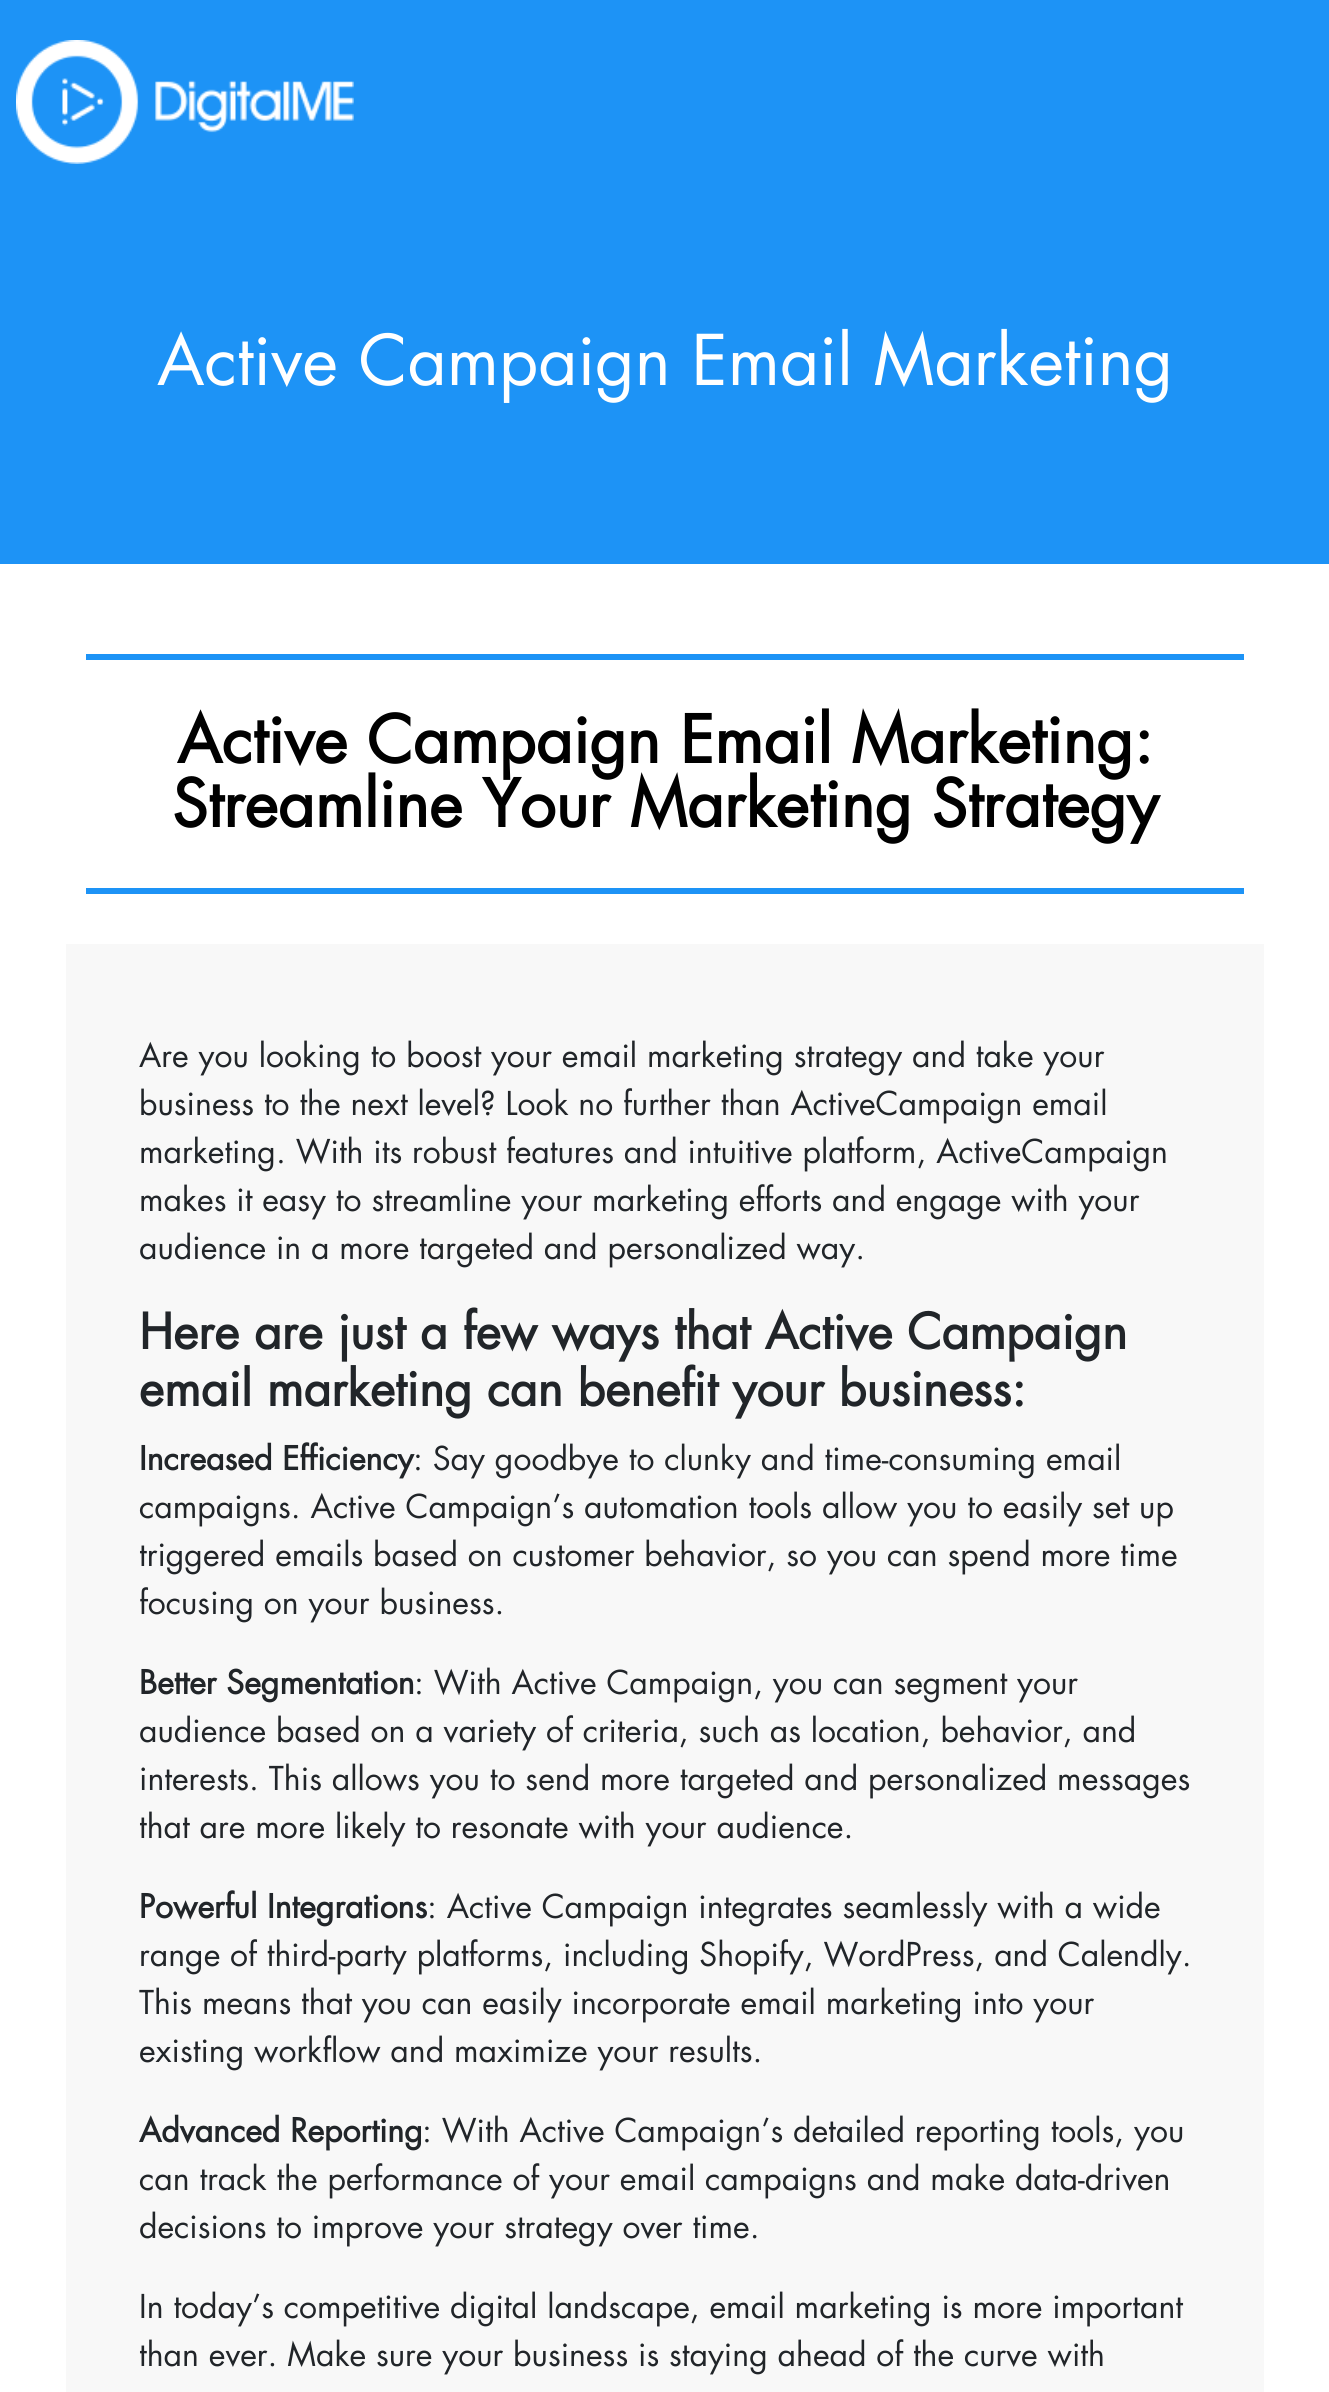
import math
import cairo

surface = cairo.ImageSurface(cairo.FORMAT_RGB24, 1329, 2392)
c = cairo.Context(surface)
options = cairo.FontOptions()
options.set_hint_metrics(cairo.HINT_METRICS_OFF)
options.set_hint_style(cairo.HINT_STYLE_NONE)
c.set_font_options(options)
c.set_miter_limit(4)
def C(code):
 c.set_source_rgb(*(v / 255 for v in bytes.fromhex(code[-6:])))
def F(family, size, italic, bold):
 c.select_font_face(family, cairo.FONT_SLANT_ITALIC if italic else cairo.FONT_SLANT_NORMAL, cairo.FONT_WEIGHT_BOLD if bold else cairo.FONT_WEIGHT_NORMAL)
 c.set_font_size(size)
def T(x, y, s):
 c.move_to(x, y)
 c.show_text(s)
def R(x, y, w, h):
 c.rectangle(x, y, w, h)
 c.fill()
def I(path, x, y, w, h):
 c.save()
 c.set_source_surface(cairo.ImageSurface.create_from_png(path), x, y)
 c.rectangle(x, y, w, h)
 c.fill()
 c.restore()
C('ffffff')
c.paint()
C('1d93f6')
R(0,0,1329,564)
I('1.png',16,40,338,124)
F('Futura',68,0,0)
C('ffffff')
T(157,385,'Active Campaign Email Marketing')
C('1d93f6')
R(86,654,1158,6)
F('Futura',64,0,1)
C('000000')
T(177,763,'Active Campaign Email Marketing:')
T(172,827,'Streamline Your Marketing Strategy')
C('1d93f6')
R(86,888,1158,6)
C('f8f8f8')
R(66,944,1198,1448)
F('Futura',32,0,0)
C('212529')
T(139,1067,'Are you looking to boost your email marketing strategy and take your')
T(139,1115,'business to the next level? Look no further than ActiveCampaign email')
T(139,1163,'marketing. With its robust features and intuitive platform, ActiveCampaign')
T(139,1211,'makes it easy to streamline your marketing efforts and engage with your')
T(139,1259,'audience in a more targeted and personalized way.')
F('Futura',48,0,1)
T(139,1349,'Here are just a few ways that Active Campaign')
T(139,1406,'email marketing can benefit your business:')
F('Futura',32,0,1)
T(139,1470,'Increased Efficiency')
F('Futura',32,0,0)
T(413,1470,': Say goodbye to clunky and time-consuming email')
T(139,1518,'campaigns. Active Campaign’s automation tools allow you to easily set up')
T(139,1566,'triggered emails based on customer behavior, so you can spend more time')
T(139,1614,'focusing on your business.')
F('Futura',32,0,1)
T(139,1694,'Better Segmentation')
F('Futura',32,0,0)
T(414,1694,': With Active Campaign, you can segment your')
T(139,1742,'audience based on a variety of criteria, such as location, behavior, and')
T(139,1790,'interests. This allows you to send more targeted and personalized messages')
T(139,1838,'that are more likely to resonate with your audience.')
F('Futura',32,0,1)
T(139,1918,'Powerful Integrations')
F('Futura',32,0,0)
T(427,1918,': Active Campaign integrates seamlessly with a wide')
T(139,1966,'range of third-party platforms, including Shopify, WordPress, and Calendly.')
T(139,2014,'This means that you can easily incorporate email marketing into your')
T(139,2062,'existing workflow and maximize your results.')
F('Futura',32,0,1)
T(139,2142,'Advanced Reporting')
F('Futura',32,0,0)
T(422,2142,': With Active Campaign’s detailed reporting tools, you')
T(139,2190,'can track the performance of your email campaigns and make data-driven')
T(139,2238,'decisions to improve your strategy over time.')
T(139,2318,'In today’s competitive digital landscape, email marketing is more important')
T(139,2366,'than ever. Make sure your business is staying ahead of the curve with')
surface.write_to_png('o.png')
